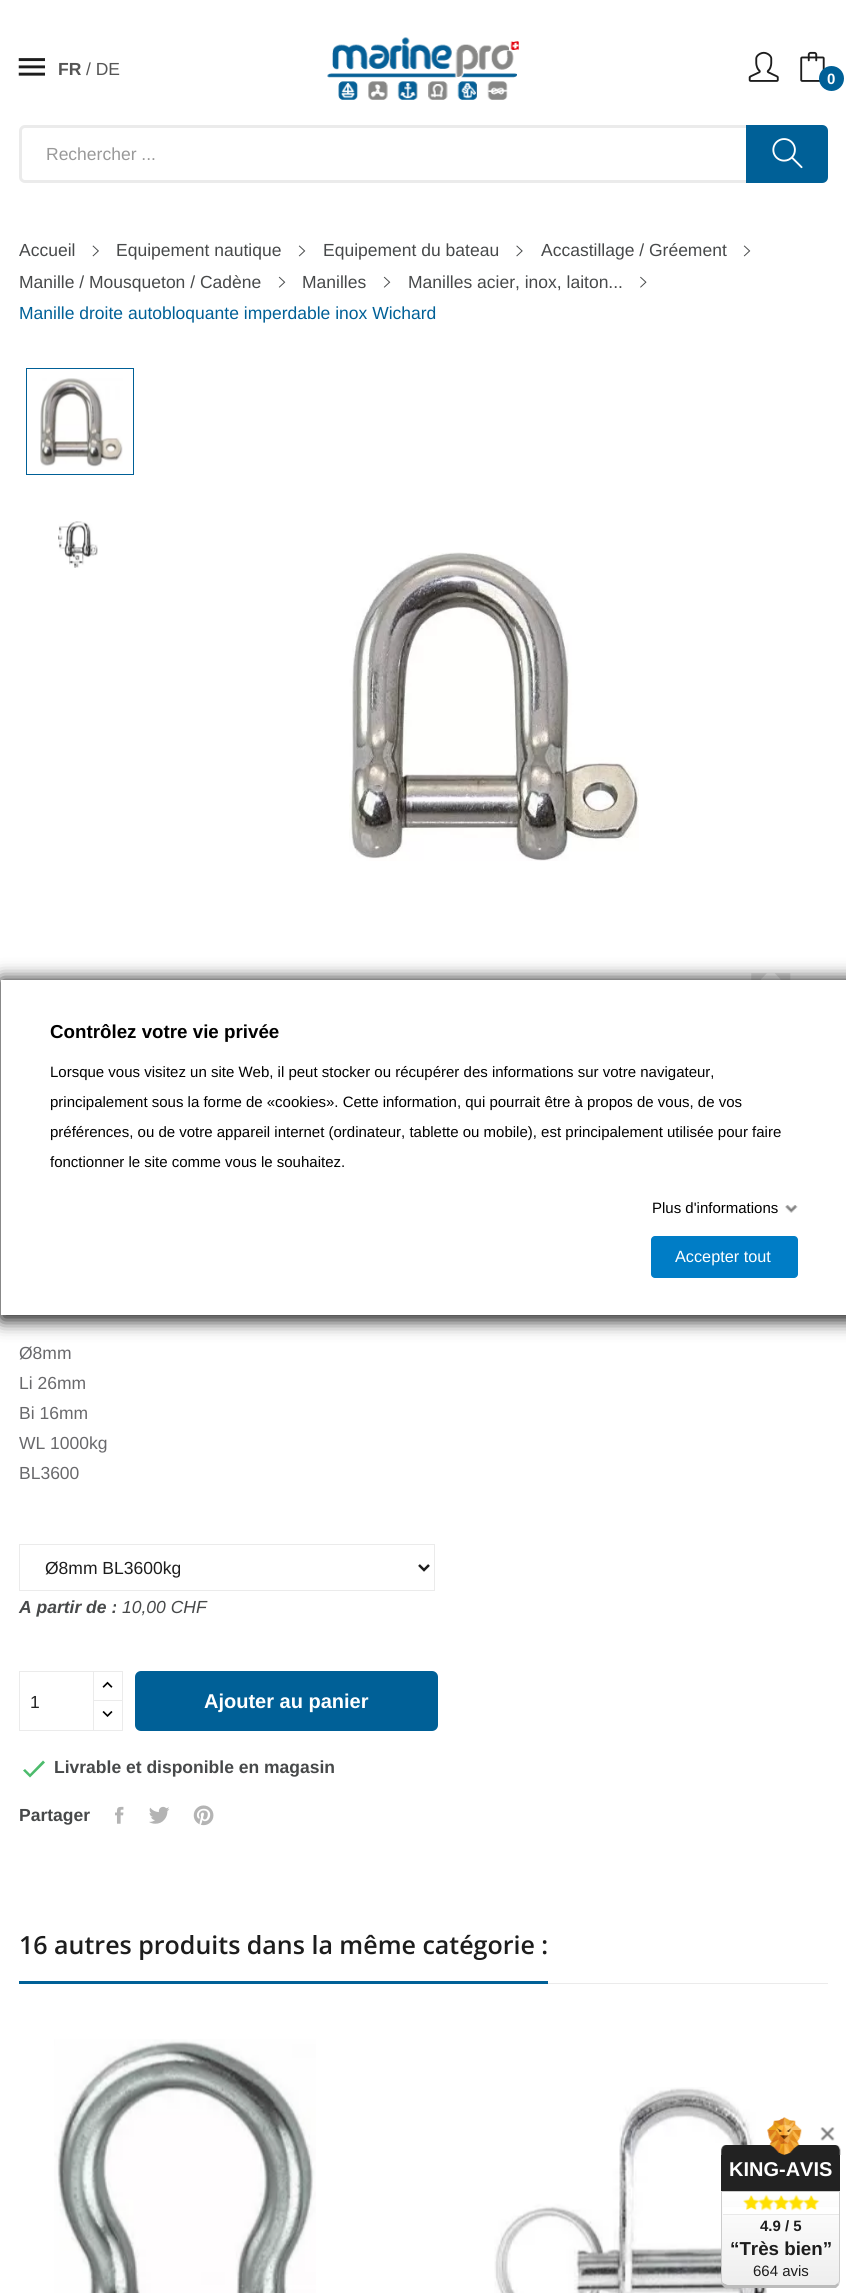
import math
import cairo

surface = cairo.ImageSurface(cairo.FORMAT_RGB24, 846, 2293)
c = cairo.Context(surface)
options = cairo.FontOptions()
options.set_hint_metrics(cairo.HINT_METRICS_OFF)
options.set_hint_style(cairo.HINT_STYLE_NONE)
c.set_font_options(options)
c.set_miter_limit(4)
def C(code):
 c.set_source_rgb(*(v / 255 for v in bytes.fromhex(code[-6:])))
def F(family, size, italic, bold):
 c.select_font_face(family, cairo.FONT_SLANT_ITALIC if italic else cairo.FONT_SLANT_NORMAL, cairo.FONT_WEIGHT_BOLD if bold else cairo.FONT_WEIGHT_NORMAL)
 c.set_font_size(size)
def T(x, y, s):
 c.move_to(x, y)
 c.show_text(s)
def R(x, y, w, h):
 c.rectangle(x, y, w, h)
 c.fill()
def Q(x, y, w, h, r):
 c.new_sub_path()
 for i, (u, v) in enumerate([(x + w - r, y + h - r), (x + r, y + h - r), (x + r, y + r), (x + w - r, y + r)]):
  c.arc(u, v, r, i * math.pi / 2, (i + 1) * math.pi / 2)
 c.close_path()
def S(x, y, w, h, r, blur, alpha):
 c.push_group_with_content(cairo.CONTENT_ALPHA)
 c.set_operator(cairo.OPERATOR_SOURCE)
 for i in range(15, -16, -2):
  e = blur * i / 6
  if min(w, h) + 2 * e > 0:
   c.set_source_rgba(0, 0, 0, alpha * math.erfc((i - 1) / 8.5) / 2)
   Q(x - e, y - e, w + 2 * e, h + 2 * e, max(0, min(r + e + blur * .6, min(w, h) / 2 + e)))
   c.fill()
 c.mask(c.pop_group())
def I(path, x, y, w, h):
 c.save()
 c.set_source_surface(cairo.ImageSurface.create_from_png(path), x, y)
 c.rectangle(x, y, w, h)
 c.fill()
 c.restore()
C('ffffff')
c.paint()
I('1.png',18,58,27,18)
F('Liberation Sans',17.5,0,1)
C('555555')
T(58,75,'FR')
F('Liberation Sans',17.5,0,0)
T(86,75,'/ DE')
I('2.png',327,37,192,63)
I('3.png',748,51,31,31)
I('4.png',800,51,25,31)
C('006097')
c.arc(831.5,78.5,12.5,0,2 * math.pi)
c.fill()
F('Liberation Sans',15,0,1)
C('ffffff')
T(827,84,'0')
Q(20.5,126.5,806,55,4.5)
C('ebebeb')
c.set_line_width(3)
c.stroke()
F('Liberation Sans',17.5,0,0)
C('999999')
T(46,160,'Rechercher ...')
C('006097')
c.new_path()
c.move_to(746,125)
c.line_to(822,125)
c.curve_to(825.5,125,828,127.5,828,131)
c.line_to(828,177)
c.curve_to(828,180.5,825.5,183,822,183)
c.line_to(746,183)
c.close_path()
c.fill()
I('5.png',772,138,31,31)
C('47494a')
T(19,256,'Accueil')
I('6.png',92,245,7,12)
T(116,256,'Equipement nautique')
I('7.png',298,245,8,12)
T(323,256,'Equipement du bateau')
I('8.png',516,245,7,12)
T(541,256,'Accastillage / Gréement')
I('7.png',743,245,8,12)
T(19,288,'Manille / Mousqueton / Cadène')
I('9.png',278,276,8,12)
T(302,288,'Manilles')
I('9.png',383,276,8,12)
T(408,288,'Manilles acier, inox, laiton...')
I('10.png',640,276,7,12)
C('006097')
T(19,319,'Manille droite autobloquante imperdable inox Wichard')
I('11.png',40,378,83,89)
c.rectangle(26.5,368.5,107,106)
c.set_line_width(1)
c.stroke()
I('12.png',58,521,40,47)
I('13.png',349,552,290,309)
I('14.png',751,973,40,7)
C('69696c')
T(19,1359,'Ø8mm')
T(19,1389,'Li 26mm')
T(19,1419,'Bi 16mm')
T(19,1449,'WL 1000kg')
T(19,1479,'BL3600')
c.rectangle(19.5,1544.5,415,46)
C('ebebeb')
c.stroke()
c.new_path()
c.move_to(419,1565)
c.line_to(424,1570)
c.line_to(429,1565)
C('1d1d1d')
c.set_line_width(2.5)
c.stroke()
T(45,1574,'Ø8mm BL3600kg')
F('Liberation Sans',17.5,1,1)
C('47494a')
T(19,1613,'A partir de :')
F('Liberation Sans',17.5,1,0)
T(122,1613,'10,00 CHF')
c.rectangle(93.5,1671.5,29,31)
C('ebebeb')
c.set_line_width(1)
c.stroke()
C('ffffff')
R(94,1702,28,1)
c.rectangle(93.5,1700.5,29,30)
C('ebebeb')
c.stroke()
c.rectangle(19.5,1671.5,74,59)
c.stroke()
F('Liberation Sans',17.5,0,0)
C('232323')
T(30,1708,'1')
I('15.png',102,1681,11,7)
I('16.png',102,1711,11,6)
C('006097')
Q(135,1671,303,60,6)
c.fill()
F('Liberation Sans',20,0,1)
C('ffffff')
T(204,1708,'Ajouter au panier')
C('4cbb6c')
c.new_path()
c.move_to(30,1774)
c.line_to(43,1760.5)
c.line_to(45,1762.5)
c.line_to(30,1777.5)
c.line_to(23,1770.5)
c.line_to(25,1769)
c.close_path()
c.fill()
F('Liberation Sans',17.5,0,1)
C('47494a')
T(54,1773,'Livrable et disponible en magasin')
T(19,1821,'Partager')
I('17.png',115,1806,9,18)
I('18.png',149,1806,21,18)
I('19.png',193,1805,21,21)
C('ebebeb')
R(548,1983,280,1)
F('Open Sans SemiBold',25,0,0)
C('1d1d1d')
T(19,1954,'16 autres produits dans la même catégorie :')
C('006097')
R(19,1981,529,3)
I('20.png',54,2039,262,254)
I('21.png',494,2087,274,206)
C('121212')
S(1,980,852,340,0,9,1)
C('ffffff')
R(1,980,845,335)
F('Liberation Sans',18.75,0,1)
C('000000')
T(50,1038,'Contrôlez votre vie privée')
F('Liberation Sans',15,0,0)
T(50,1077,'Lorsque vous visitez un site Web, il peut stocker ou récupérer des informations sur votre navigateur,')
T(50,1107,'principalement sous la forme de «cookies». Cette information, qui pourrait être à propos de vous, de vos')
T(50,1137,'préférences, ou de votre appareil internet (ordinateur, tablette ou mobile), est principalement utilisée pour faire')
T(50,1167,'fonctionner le site comme vous le souhaitez.')
T(652,1213,'Plus d\'informations')
I('22.png',785,1205,13,8)
C('007dc6')
Q(651,1236,147,42,4)
c.fill()
F('Liberation Sans',16.25,0,0)
C('ffffff')
T(675,1262,'Accepter tout')
I('23.png',721,2117,120,38)
C('222222')
R(721,2155,119,36)
F('Liberation Sans',20,0,1)
C('ffffff')
T(729,2176,'KING-AVIS')
gradient = cairo.LinearGradient(781,2193,781,2285)
gradient.add_color_stop_rgba(0,1,1,1,1)
gradient.add_color_stop_rgba(1,0.933,0.933,0.933,1)
c.set_source(gradient)
c.new_path()
c.move_to(722,2192)
c.line_to(839,2192)
c.line_to(839,2281)
c.curve_to(839,2283,837,2285,834,2285)
c.line_to(728,2285)
c.curve_to(725,2285,722,2283,722,2281)
c.close_path()
c.fill()
C('cccccc')
c.new_path()
c.move_to(722,2192)
c.line_to(839,2192)
c.line_to(840,2191)
c.line_to(721,2191)
c.close_path()
c.fill()
c.new_path()
c.move_to(840,2191)
c.line_to(839,2192)
c.line_to(839,2281)
c.line_to(838,2283)
c.line_to(839,2285)
c.line_to(840,2281)
c.close_path()
c.fill()
C('bbbbbb')
c.new_path()
c.move_to(725,2288)
c.line_to(722,2285)
c.line_to(723,2283)
c.line_to(727,2285)
c.line_to(835,2285)
c.line_to(838,2283)
c.line_to(839,2285)
c.line_to(836,2288)
c.close_path()
c.fill()
C('cccccc')
c.new_path()
c.move_to(722,2192)
c.line_to(722,2281)
c.line_to(723,2283)
c.line_to(722,2285)
c.line_to(721,2283)
c.line_to(721,2191)
c.close_path()
c.fill()
I('24.png',820,2127,15,14)
C('ffffff')
R(723,2207,116,7)
C('e9e9e9')
R(723,2214,116,1)
I('25.png',743,2195,17,15)
I('26.png',758,2194,17,17)
I('27.png',773,2195,17,15)
I('28.png',788,2194,17,17)
I('27.png',803,2195,17,15)
F('Liberation Sans',15,0,1)
C('1d1d1d')
T(760,2231,'4.9 / 5')
F('Liberation Sans',18.75,0,1)
T(730,2255,'“Très bien”')
F('Liberation Sans',15,0,0)
T(753,2276,'664 avis')
surface.write_to_png('o.png')
